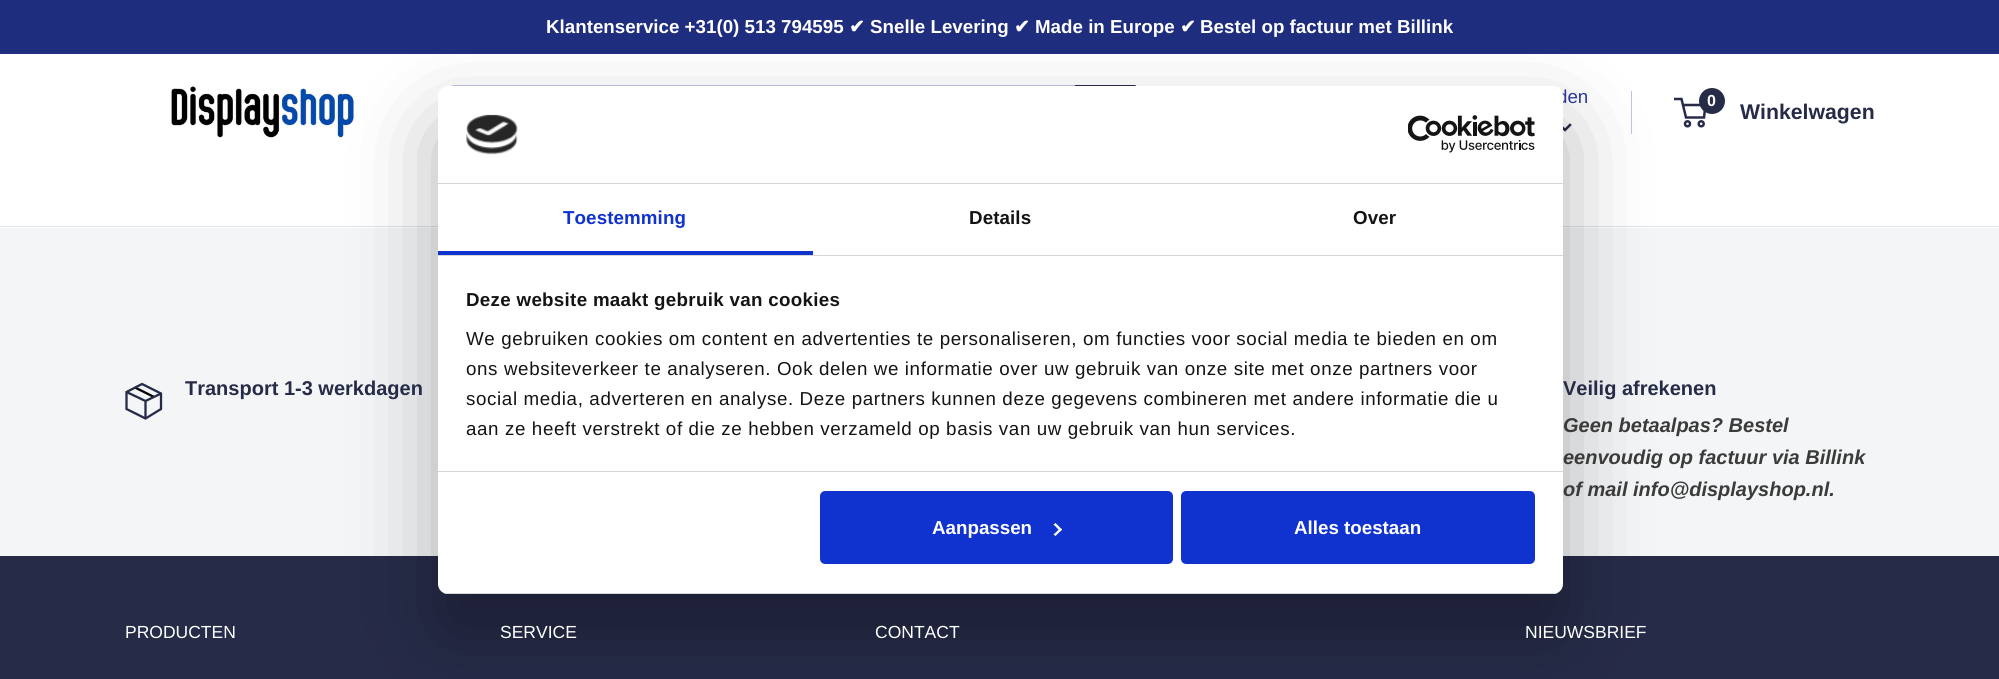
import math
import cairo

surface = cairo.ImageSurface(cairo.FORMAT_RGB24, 1999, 679)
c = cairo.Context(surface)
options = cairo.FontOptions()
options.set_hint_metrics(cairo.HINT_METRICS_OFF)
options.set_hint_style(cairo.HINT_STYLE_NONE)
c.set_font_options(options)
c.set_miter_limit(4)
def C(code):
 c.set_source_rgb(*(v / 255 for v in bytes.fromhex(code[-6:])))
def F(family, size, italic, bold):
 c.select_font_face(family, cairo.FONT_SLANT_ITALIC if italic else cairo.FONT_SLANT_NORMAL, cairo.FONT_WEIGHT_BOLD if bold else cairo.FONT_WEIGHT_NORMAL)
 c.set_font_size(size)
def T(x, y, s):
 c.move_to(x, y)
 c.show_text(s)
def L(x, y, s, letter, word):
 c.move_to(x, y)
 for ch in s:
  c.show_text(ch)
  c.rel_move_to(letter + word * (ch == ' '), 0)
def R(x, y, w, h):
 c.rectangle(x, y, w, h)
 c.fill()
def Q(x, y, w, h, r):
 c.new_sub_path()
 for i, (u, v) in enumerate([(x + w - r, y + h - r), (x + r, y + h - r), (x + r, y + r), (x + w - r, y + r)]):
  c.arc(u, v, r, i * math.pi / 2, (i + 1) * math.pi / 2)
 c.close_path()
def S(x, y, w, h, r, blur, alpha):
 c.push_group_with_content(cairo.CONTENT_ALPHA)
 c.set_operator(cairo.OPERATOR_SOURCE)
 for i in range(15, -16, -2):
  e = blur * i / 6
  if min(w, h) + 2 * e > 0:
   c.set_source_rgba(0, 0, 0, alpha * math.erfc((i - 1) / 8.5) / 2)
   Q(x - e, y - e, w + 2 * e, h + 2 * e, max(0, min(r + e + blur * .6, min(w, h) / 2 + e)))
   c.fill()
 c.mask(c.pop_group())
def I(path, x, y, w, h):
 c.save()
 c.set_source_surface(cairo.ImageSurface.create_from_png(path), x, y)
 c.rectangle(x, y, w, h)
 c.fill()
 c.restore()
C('f3f5f6')
c.paint()
C('1e2d7d')
R(0,0,1999,53)
C('223187')
R(0,53,1999,1)
F('Liberation Sans',18.75,0,1)
C('ffffff')
T(546,33,'Klantenservice +31(0) 513 794595')
F('DejaVu Sans',18.75,0,1)
T(849,33,'✔')
F('Liberation Sans',18.75,0,1)
T(870,33,'Snelle Levering')
F('DejaVu Sans',18.75,0,1)
T(1014,33,'✔')
F('Liberation Sans',18.75,0,1)
T(1035,33,'Made in Europe')
F('DejaVu Sans',18.75,0,1)
T(1180,33,'✔')
F('Liberation Sans',18.75,0,1)
T(1200,33,'Bestel op factuur met Billink')
R(0,54,1999,174)
I('1.png',170,86,185,54)
c.set_source_rgba(0.169,0.227,0.624,0.3)
c.new_path()
c.move_to(455,86)
c.line_to(1135,86)
c.line_to(1137,87)
c.curve_to(1137,86,1135,85,1134,85)
c.line_to(454,85)
c.curve_to(452,85,450,87,450,89)
c.line_to(450,136)
c.curve_to(450,137,450,138,451,139)
c.line_to(451,98)
c.curve_to(451,96,449,86,455,86)
c.close_path()
c.fill()
C('262b48')
c.new_path()
c.move_to(1075,85)
c.line_to(1134,85)
c.curve_to(1136,85,1138,87,1138,89)
c.line_to(1138,136)
c.curve_to(1138,138,1136,140,1134,140)
c.line_to(1075,140)
c.close_path()
c.fill()
F('Liberation Sans',18.75,0,0)
C('2b3a9f')
T(1557,103,'den')
C('bfc4e2')
R(1631,91,1,43)
c.new_path()
c.move_to(1570,125)
c.line_to(1565,130)
c.line_to(1560,125)
C('262b48')
c.set_line_width(2.5)
c.set_line_cap(cairo.LINE_CAP_SQUARE)
c.stroke()
c.arc(1687.5,123.8,2.5,0,2 * math.pi)
c.set_line_cap(cairo.LINE_CAP_BUTT)
c.stroke()
c.arc(1701.2,123.8,2.5,0,2 * math.pi)
c.stroke()
c.new_path()
c.move_to(1683,105)
c.line_to(1705.5,105)
c.line_to(1704,117.5)
c.line_to(1686,117.5)
c.line_to(1681.5,99)
c.line_to(1674,99)
c.stroke()
c.arc(1712,101,13,0,2 * math.pi)
c.fill()
F('Liberation Sans',16,0,1)
C('ffffff')
T(1707,106,'0')
F('Liberation Sans',21.25,0,1)
C('262b48')
T(1740,119,'Winkelwagen')
C('e1e3e4')
R(0,226,1999,1)
C('262b48')
R(0,556,1999,123)
C('000000')
S(438,126,1125,508,10,42.5,.3)
C('ffffff')
Q(438,86,1125,508,10)
c.fill()
C('d6d6d6')
R(438,183,1125,1)
I('2.png',466,114,52,41)
I('3.png',1408,115,127,38)
R(438,255,1125,1)
C('1032cf')
R(438,251,375,4)
F('Liberation Sans',18.75,0,1)
L(563,224,'Toestemming',.1,0)
C('141414')
L(969,224,'Details',.1,0)
L(1353,224,'Over',.1,0)
C('d6d6d6')
R(438,471,1125,1)
C('141414')
L(466,306,'Deze website maakt gebruik van cookies',.3,0)
F('Liberation Sans',18.75,0,0)
L(466,345,'We gebruiken cookies om content en advertenties te personaliseren, om functies voor social media te bieden en om',.62,0)
L(466,375,'ons websiteverkeer te analyseren. Ook delen we informatie over uw gebruik van onze site met onze partners voor',.62,0)
L(466,405,'social media, adverteren en analyse. Deze partners kunnen deze gegevens combineren met andere informatie die u',.62,0)
L(466,435,'aan ze heeft verstrekt of die ze hebben verzameld op basis van uw gebruik van hun services.',.62,0)
c.save()
Q(438,86,1125,508,10)
c.clip()
C('d6d6d6')
R(438,593,1125,1)
c.restore()
C('1032cf')
Q(821.5,492.5,350,70,3.5)
c.fill_preserve()
c.set_line_width(3)
c.stroke()
F('Liberation Sans',18.75,0,1)
C('ffffff')
T(932,534,'Aanpassen')
c.new_path()
c.move_to(1055.5,523)
c.line_to(1062,529.5)
c.line_to(1060.5,531.5)
c.line_to(1053.5,524.5)
c.close_path()
c.fill()
c.new_path()
c.move_to(1060.5,528)
c.line_to(1062,529.5)
c.line_to(1055.5,536)
c.line_to(1053.5,534.5)
c.close_path()
c.fill()
C('1032cf')
Q(1182.5,492.5,351,70,3.5)
c.fill_preserve()
c.stroke()
C('ffffff')
T(1294,534,'Alles toestaan')
c.new_path()
c.move_to(135,387.5)
c.line_to(154,397)
C('000000')
c.set_line_width(2.3)
c.stroke()
c.new_path()
c.move_to(161,393.5)
c.line_to(145.5,401)
c.line_to(126.5,392)
c.move_to(145.5,401)
c.line_to(145.5,418.5)
C('262b48')
c.stroke()
c.new_path()
c.move_to(161,393.5)
c.line_to(161,409)
c.line_to(145.5,418.5)
c.line_to(126.5,409)
c.line_to(126.5,392)
c.line_to(142,384)
c.close_path()
c.set_line_cap(cairo.LINE_CAP_SQUARE)
c.stroke()
F('Liberation Sans',20,0,1)
T(185,395,'Transport 1-3 werkdagen')
T(1563,395,'Veilig afrekenen')
F('Liberation Sans',20,1,1)
C('3a3b3a')
T(1563,432,'Geen betaalpas? Bestel')
T(1563,464,'eenvoudig op factuur via Billink')
T(1563,496,'of mail info@displayshop.nl.')
F('Liberation Sans',17.5,0,0)
C('ffffff')
T(125,638,'PRODUCTEN')
T(500,638,'SERVICE')
T(875,638,'CONTACT')
T(1525,638,'NIEUWSBRIEF')
surface.write_to_png('o.png')
